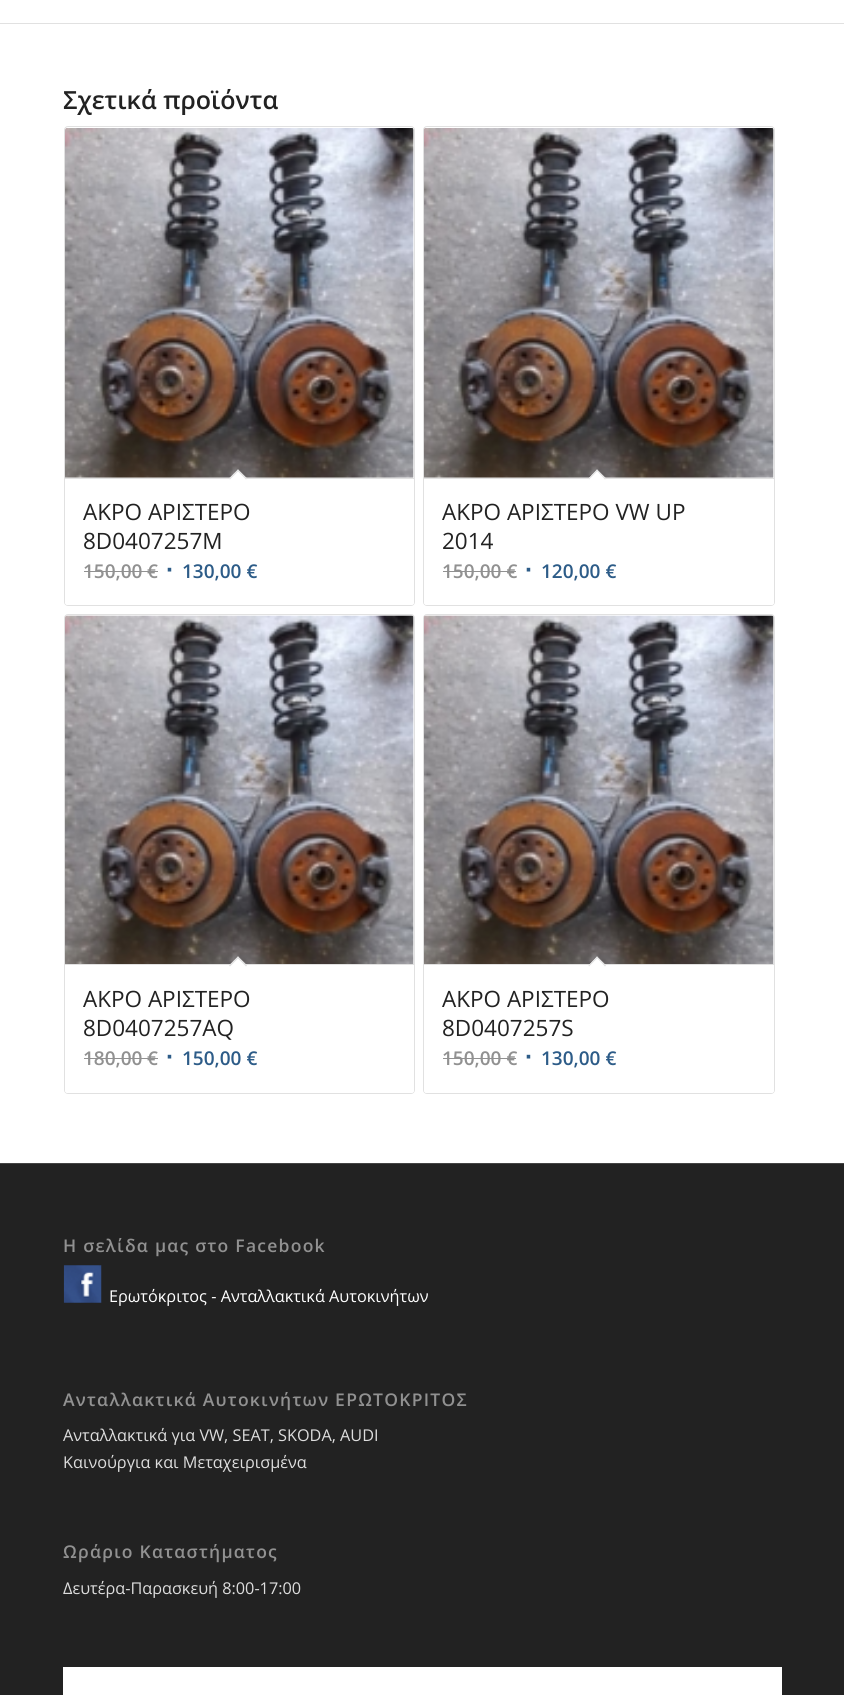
import math
import cairo

surface = cairo.ImageSurface(cairo.FORMAT_RGB24, 844, 1695)
c = cairo.Context(surface)
options = cairo.FontOptions()
options.set_hint_metrics(cairo.HINT_METRICS_OFF)
options.set_hint_style(cairo.HINT_STYLE_NONE)
c.set_font_options(options)
c.set_miter_limit(4)
def C(code):
 c.set_source_rgb(*(v / 255 for v in bytes.fromhex(code[-6:])))
def F(family, size, italic, bold):
 c.select_font_face(family, cairo.FONT_SLANT_ITALIC if italic else cairo.FONT_SLANT_NORMAL, cairo.FONT_WEIGHT_BOLD if bold else cairo.FONT_WEIGHT_NORMAL)
 c.set_font_size(size)
def T(x, y, s):
 c.move_to(x, y)
 c.show_text(s)
def L(x, y, s, letter, word):
 c.move_to(x, y)
 for ch in s:
  c.show_text(ch)
  c.rel_move_to(letter + word * (ch == ' '), 0)
def R(x, y, w, h):
 c.rectangle(x, y, w, h)
 c.fill()
def Q(x, y, w, h, r):
 c.new_sub_path()
 for i, (u, v) in enumerate([(x + w - r, y + h - r), (x + r, y + h - r), (x + r, y + r), (x + w - r, y + r)]):
  c.arc(u, v, r, i * math.pi / 2, (i + 1) * math.pi / 2)
 c.close_path()
def I(path, x, y, w, h):
 c.save()
 c.set_source_surface(cairo.ImageSurface.create_from_png(path), x, y)
 c.rectangle(x, y, w, h)
 c.fill()
 c.restore()
C('ffffff')
c.paint()
C('e1e1e1')
R(0,23,844,1)
F('Open Sans SemiBold',25,0,0)
C('222222')
T(63,109,'Σχετικά προϊόντα')
Q(64.5,126.5,350,479,3.5)
C('e1e1e1')
c.set_line_width(1)
c.stroke()
I('1.png',65,128,349,350)
C('ffffff')
c.new_path()
c.move_to(65,478)
c.line_to(414,478)
c.line_to(414,602.5)
c.curve_to(414,604,413,605,411.5,605)
c.line_to(67.5,605)
c.curve_to(66,605,65,604,65,602.5)
c.close_path()
c.fill()
C('e1e1e1')
R(65,478,349,1)
C('ffffff')
c.new_path()
c.move_to(238,469.5)
c.line_to(247,478.5)
c.line_to(238,487.5)
c.line_to(229,478.5)
c.close_path()
c.fill()
C('e1e1e1')
c.new_path()
c.move_to(238,469.5)
c.line_to(247,478.5)
c.line_to(246,479.5)
c.line_to(237,470.5)
c.close_path()
c.fill()
c.new_path()
c.move_to(238,469.5)
c.line_to(239,470.5)
c.line_to(230,479.5)
c.line_to(229,478.5)
c.close_path()
c.fill()
F('Open Sans',22.5,0,0)
C('222222')
T(83,520,'ΑΚΡΟ ΑΡΙΣΤΕΡΟ')
T(83,549,'8D0407257M')
F('Open Sans SemiBold',19,0,0)
C('919191')
T(83,578,'150,00')
R(84,571,64,1)
T(147,578,'€')
R(148,571,10,1)
F('Liberation Sans',25,0,1)
C('2d5c88')
T(166,578,'∙')
F('Open Sans SemiBold',19,0,0)
T(182,578,'130,00 €')
Q(423.5,126.5,351,479,3.5)
C('e1e1e1')
c.stroke()
I('2.png',424,128,350,350)
C('ffffff')
c.new_path()
c.move_to(424,478)
c.line_to(774,478)
c.line_to(774,602.5)
c.curve_to(774,604,773,605,771.5,605)
c.line_to(426.5,605)
c.curve_to(425,605,424,604,424,602.5)
c.close_path()
c.fill()
C('e1e1e1')
R(424,478,350,1)
C('ffffff')
c.new_path()
c.move_to(597,469.5)
c.line_to(606,478.5)
c.line_to(597,487.5)
c.line_to(588.5,478.5)
c.close_path()
c.fill()
C('e1e1e1')
c.new_path()
c.move_to(597,469.5)
c.line_to(606,478.5)
c.line_to(605,479.5)
c.line_to(596.5,470.5)
c.close_path()
c.fill()
c.new_path()
c.move_to(597,469.5)
c.line_to(598,470.5)
c.line_to(589,479.5)
c.line_to(588.5,478.5)
c.close_path()
c.fill()
F('Open Sans',22.5,0,0)
C('222222')
T(442,520,'ΑΚΡΟ ΑΡΙΣΤΕΡΟ VW UP')
T(442,549,'2014')
F('Open Sans SemiBold',19,0,0)
C('919191')
T(442,578,'150,00 €')
R(443,571,73,1)
F('Liberation Sans',25,0,1)
C('2d5c88')
T(525,578,'∙')
F('Open Sans SemiBold',19,0,0)
T(541,578,'120,00 €')
Q(64.5,614.5,350,479,3.5)
C('e1e1e1')
c.stroke()
I('3.png',65,615,349,349)
C('ffffff')
c.new_path()
c.move_to(65,964)
c.line_to(414,964)
c.line_to(414,1090.5)
c.curve_to(414,1092,413,1093,411.5,1093)
c.line_to(67.5,1093)
c.curve_to(66,1093,65,1092,65,1090.5)
c.close_path()
c.fill()
C('e1e1e1')
R(65,964,349,1)
C('ffffff')
c.new_path()
c.move_to(238,956.5)
c.line_to(247,965.5)
c.line_to(238,974)
c.line_to(229,965.5)
c.close_path()
c.fill()
C('e1e1e1')
c.new_path()
c.move_to(238,956.5)
c.line_to(247,965.5)
c.line_to(246,966.5)
c.line_to(237,957.5)
c.close_path()
c.fill()
c.new_path()
c.move_to(238,956.5)
c.line_to(239,957.5)
c.line_to(230,966.5)
c.line_to(229,965.5)
c.close_path()
c.fill()
F('Open Sans',22.5,0,0)
C('222222')
T(83,1007,'ΑΚΡΟ ΑΡΙΣΤΕΡΟ')
T(83,1036,'8D0407257AQ')
F('Open Sans SemiBold',19,0,0)
C('919191')
T(83,1065,'180,00')
R(84,1058,64,1)
T(147,1065,'€')
R(148,1058,10,1)
F('Liberation Sans',25,0,1)
C('2d5c88')
T(166,1065,'∙')
F('Open Sans SemiBold',19,0,0)
T(182,1065,'150,00 €')
Q(423.5,614.5,351,479,3.5)
C('e1e1e1')
c.stroke()
I('4.png',424,615,350,349)
C('ffffff')
c.new_path()
c.move_to(424,964)
c.line_to(774,964)
c.line_to(774,1090.5)
c.curve_to(774,1092,773,1093,771.5,1093)
c.line_to(426.5,1093)
c.curve_to(425,1093,424,1092,424,1090.5)
c.close_path()
c.fill()
C('e1e1e1')
R(424,964,350,1)
C('ffffff')
c.new_path()
c.move_to(597,956.5)
c.line_to(606,965.5)
c.line_to(597,974)
c.line_to(588.5,965.5)
c.close_path()
c.fill()
C('e1e1e1')
c.new_path()
c.move_to(597,956.5)
c.line_to(606,965.5)
c.line_to(605,966.5)
c.line_to(596.5,957.5)
c.close_path()
c.fill()
c.new_path()
c.move_to(597,956.5)
c.line_to(598,957.5)
c.line_to(589,966.5)
c.line_to(588.5,965.5)
c.close_path()
c.fill()
F('Open Sans',22.5,0,0)
C('222222')
T(442,1007,'ΑΚΡΟ ΑΡΙΣΤΕΡΟ')
T(442,1036,'8D0407257S')
F('Open Sans SemiBold',19,0,0)
C('919191')
T(442,1065,'150,00 €')
R(443,1058,73,1)
F('Liberation Sans',25,0,1)
C('2d5c88')
T(525,1065,'∙')
F('Open Sans SemiBold',19,0,0)
T(541,1065,'130,00 €')
C('222222')
R(0,1164,844,531)
C('444444')
R(0,1163,844,1)
F('Open Sans SemiBold',17.5,0,0)
C('919191')
L(63,1252,'Η σελίδα μας στο Facebook',1.25,0)
I('5.png',63,1265,39,38)
F('Open Sans',16.25,0,0)
C('ffffff')
T(109,1302,'Ερωτόκριτος - Ανταλλακτικά Αυτοκινήτων')
F('Open Sans SemiBold',17.5,0,0)
C('919191')
L(63,1406,'Ανταλλακτικά Αυτοκινήτων ΕΡΩΤΟΚΡΙΤΟΣ',1.25,0)
F('Open Sans',16.25,0,0)
C('dddddd')
T(63,1441,'Ανταλλακτικά για VW, SEAT, SKODA, AUDI')
T(63,1468,'Καινούργια και Μεταχειρισμένα')
F('Open Sans SemiBold',17.5,0,0)
C('919191')
L(63,1558,'Ωράριο Καταστήματος',1.25,0)
F('Open Sans',16.25,0,0)
C('dddddd')
T(63,1594,'Δευτέρα-Παρασκευή 8:00-17:00')
C('ffffff')
R(63,1667,719,28)
surface.write_to_png('o.png')
